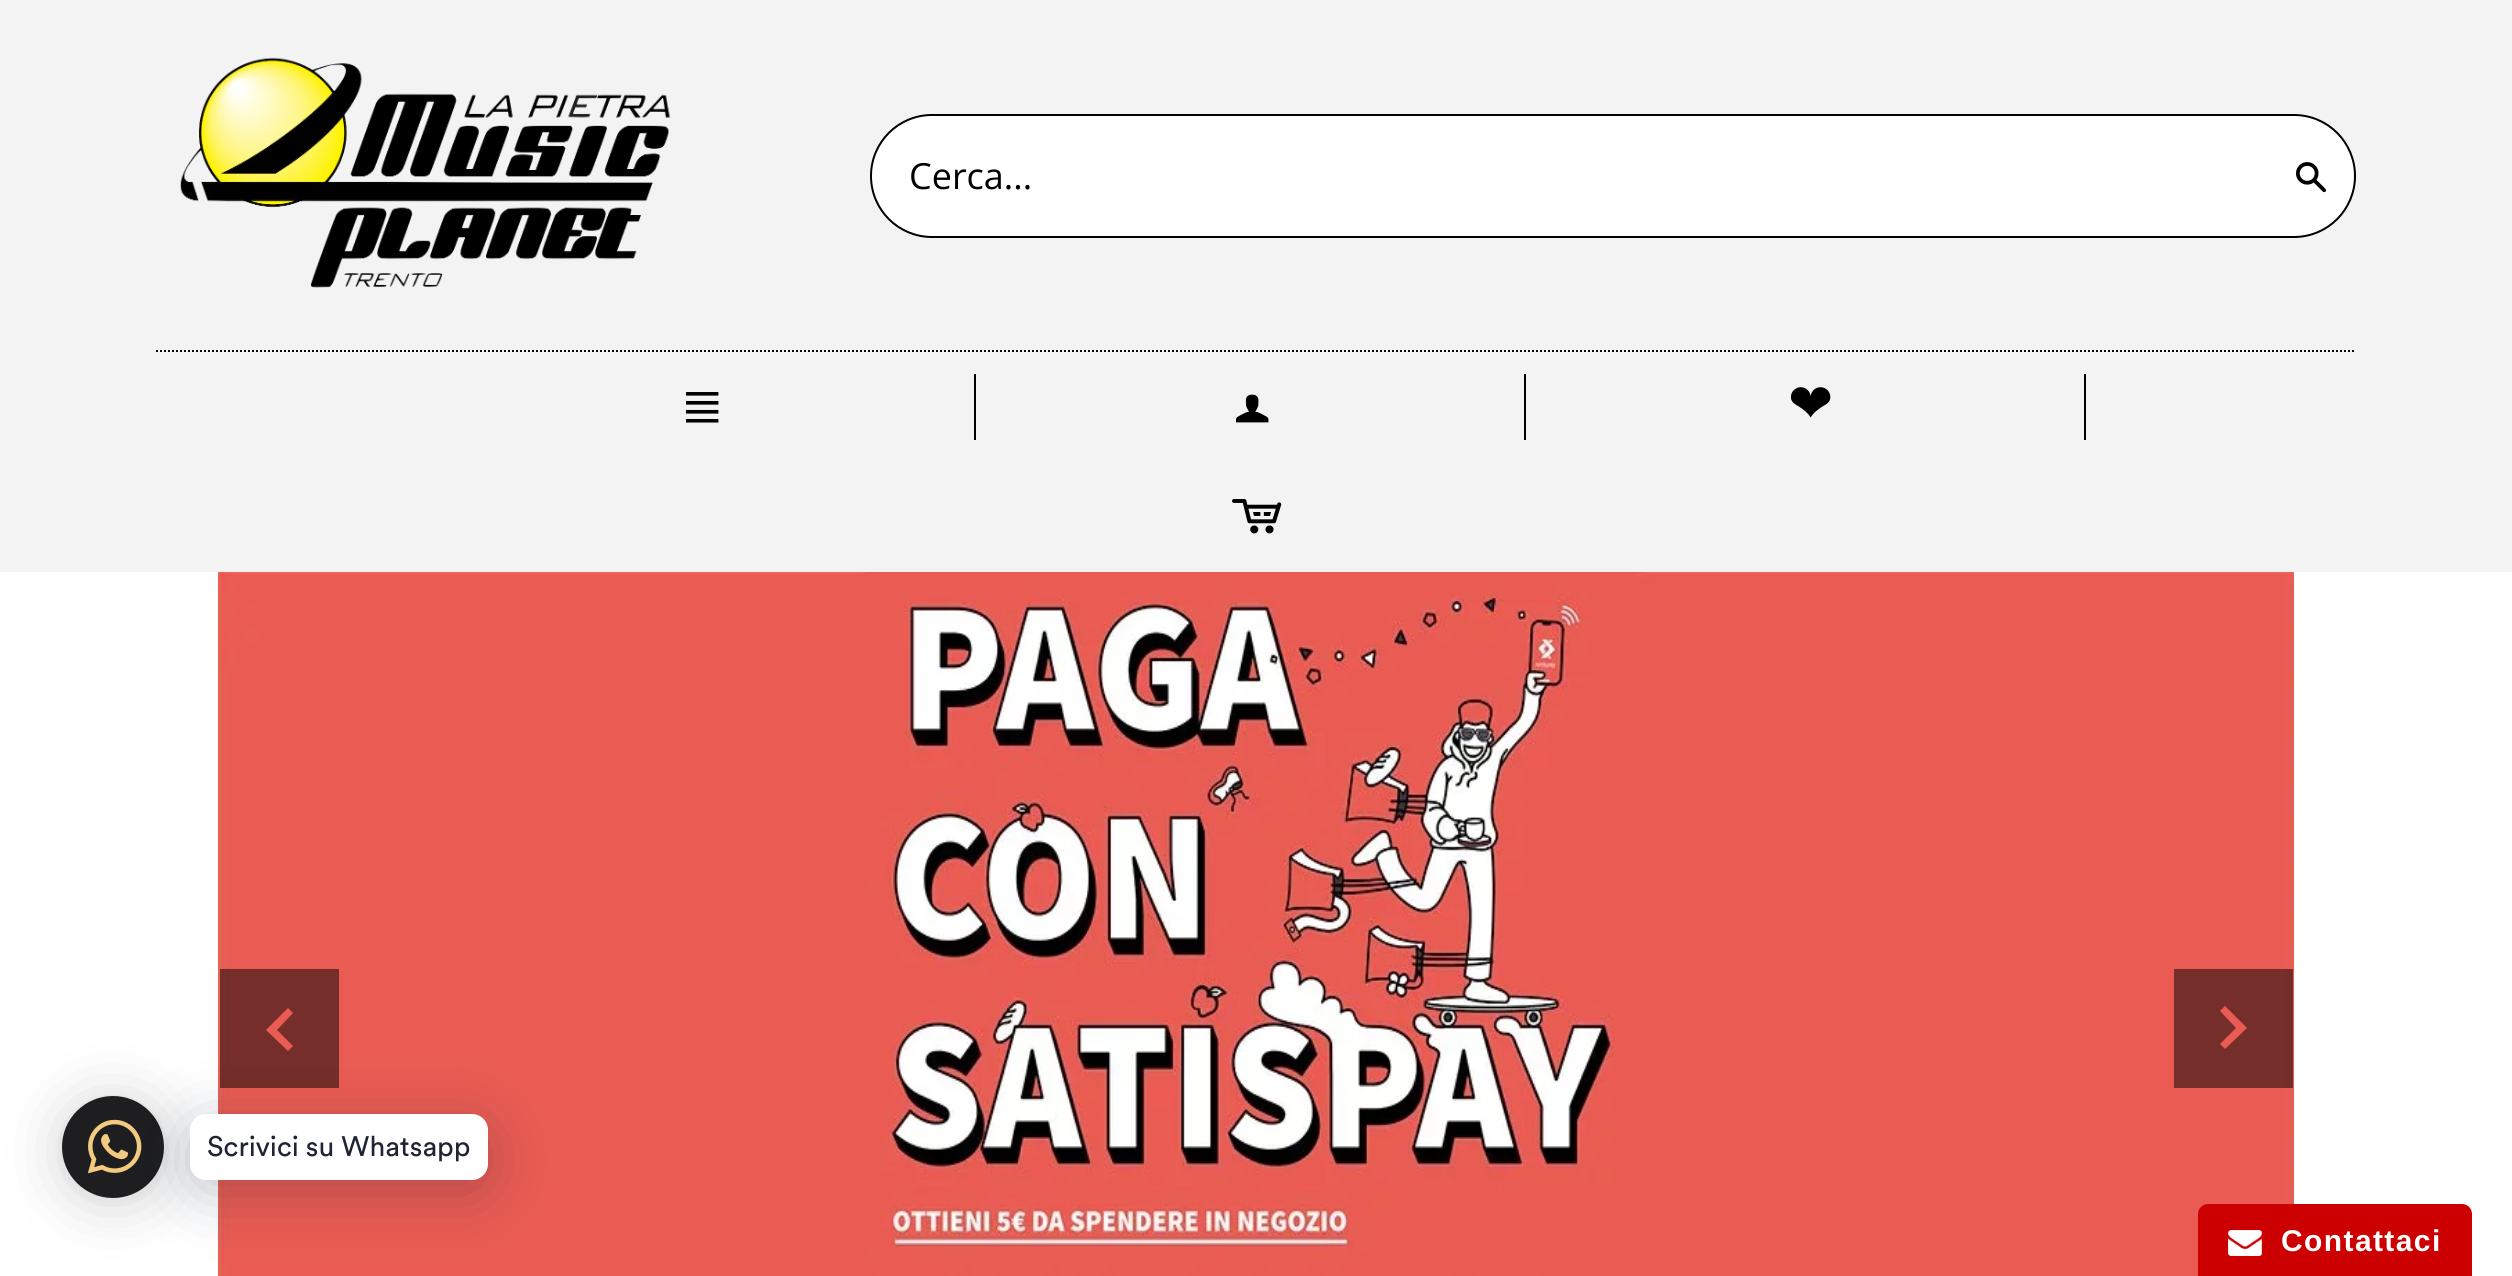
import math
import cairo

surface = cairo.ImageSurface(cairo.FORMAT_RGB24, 2512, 1276)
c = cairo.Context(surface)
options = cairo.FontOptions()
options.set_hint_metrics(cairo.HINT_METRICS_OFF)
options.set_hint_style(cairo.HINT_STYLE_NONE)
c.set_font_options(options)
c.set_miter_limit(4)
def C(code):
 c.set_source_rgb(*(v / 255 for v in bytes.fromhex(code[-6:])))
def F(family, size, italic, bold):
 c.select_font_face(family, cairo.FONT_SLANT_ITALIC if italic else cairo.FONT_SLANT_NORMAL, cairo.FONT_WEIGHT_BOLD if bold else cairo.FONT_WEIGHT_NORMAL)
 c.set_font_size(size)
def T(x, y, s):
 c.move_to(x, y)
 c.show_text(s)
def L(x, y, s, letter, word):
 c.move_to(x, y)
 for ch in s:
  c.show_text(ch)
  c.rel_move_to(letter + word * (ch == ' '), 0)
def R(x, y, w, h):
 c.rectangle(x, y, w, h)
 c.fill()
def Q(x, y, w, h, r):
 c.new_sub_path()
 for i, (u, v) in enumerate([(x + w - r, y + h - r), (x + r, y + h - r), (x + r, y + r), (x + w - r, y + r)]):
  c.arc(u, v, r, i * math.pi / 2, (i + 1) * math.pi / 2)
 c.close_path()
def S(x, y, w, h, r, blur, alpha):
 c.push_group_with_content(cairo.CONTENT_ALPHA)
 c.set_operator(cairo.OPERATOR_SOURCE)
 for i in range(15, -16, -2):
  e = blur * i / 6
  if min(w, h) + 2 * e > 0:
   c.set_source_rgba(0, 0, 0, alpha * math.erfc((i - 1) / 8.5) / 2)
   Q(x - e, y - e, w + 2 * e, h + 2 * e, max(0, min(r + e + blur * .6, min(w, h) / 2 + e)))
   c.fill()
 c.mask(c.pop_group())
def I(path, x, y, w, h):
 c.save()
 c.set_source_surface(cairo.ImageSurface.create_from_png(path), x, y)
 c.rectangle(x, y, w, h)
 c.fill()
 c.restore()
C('ffffff')
c.paint()
C('f3f3f3')
R(0,0,2512,572)
I('1.png',180,57,491,231)
C('ffffff')
Q(871,115,1484,122,61)
c.fill_preserve()
C('000000')
c.stroke()
F('Open Sans',36,0,0)
T(909,189,'Cerca...')
I('2.png',2296,162,30,31)
c.new_path()
c.move_to(156,351)
c.line_to(2356,351)
c.set_dash([2,2])
c.stroke()
I('3.png',686,392,33,31)
R(974,374,2,66)
I('4.png',1236,394,33,29)
R(1524,374,2,66)
F('DejaVu Sans',54,0,0)
T(1788,422,'❤')
R(2084,374,2,66)
I('5.png',1232,499,50,35)
I('6.png',218,572,2076,704)
c.set_source_rgba(0,0,0,0.5)
c.new_path()
c.move_to(220,1088)
c.line_to(220,969)
c.line_to(339,969)
c.line_to(339,1088)
c.close_path()
c.move_to(266,1030)
c.line_to(288,1051)
c.line_to(293,1046)
c.line_to(277,1030)
c.line_to(293,1013)
c.line_to(288,1008)
c.close_path()
c.fill()
c.new_path()
c.move_to(2174,1088)
c.line_to(2174,969)
c.line_to(2293,969)
c.line_to(2293,1088)
c.close_path()
c.move_to(2220,1044)
c.line_to(2225,1049)
c.line_to(2247,1028)
c.line_to(2225,1006)
c.line_to(2220,1011)
c.line_to(2236,1028)
c.close_path()
c.fill()
C('000000')
S(62,1100,102,102,51,32,.16)
S(62,1098,102,102,51,6,.06)
C('1e1e20')
c.arc(113,1147,51,0,2 * math.pi)
c.fill()
C('00122e')
S(190,1126,298,66,16,32,.24)
I('7.png',87,1119,55,55)
C('ffffff')
Q(190,1114,298,66,16)
c.fill()
F('Circular',28,0,0)
C('1e2433')
T(207,1156,'Scrivici su Whatsapp')
C('cc0000')
c.new_path()
c.move_to(2208,1204)
c.line_to(2462,1204)
c.curve_to(2467.5,1204,2472,1208.5,2472,1214)
c.line_to(2472,1276)
c.line_to(2198,1276)
c.line_to(2198,1214)
c.curve_to(2198,1208.5,2202.5,1204,2208,1204)
c.close_path()
c.fill()
I('8.png',2228,1230,34,26)
F('Liberation Sans',30,0,1)
C('ffffff')
L(2281,1251,'Contattaci',1.4,0)
surface.write_to_png('o.png')
